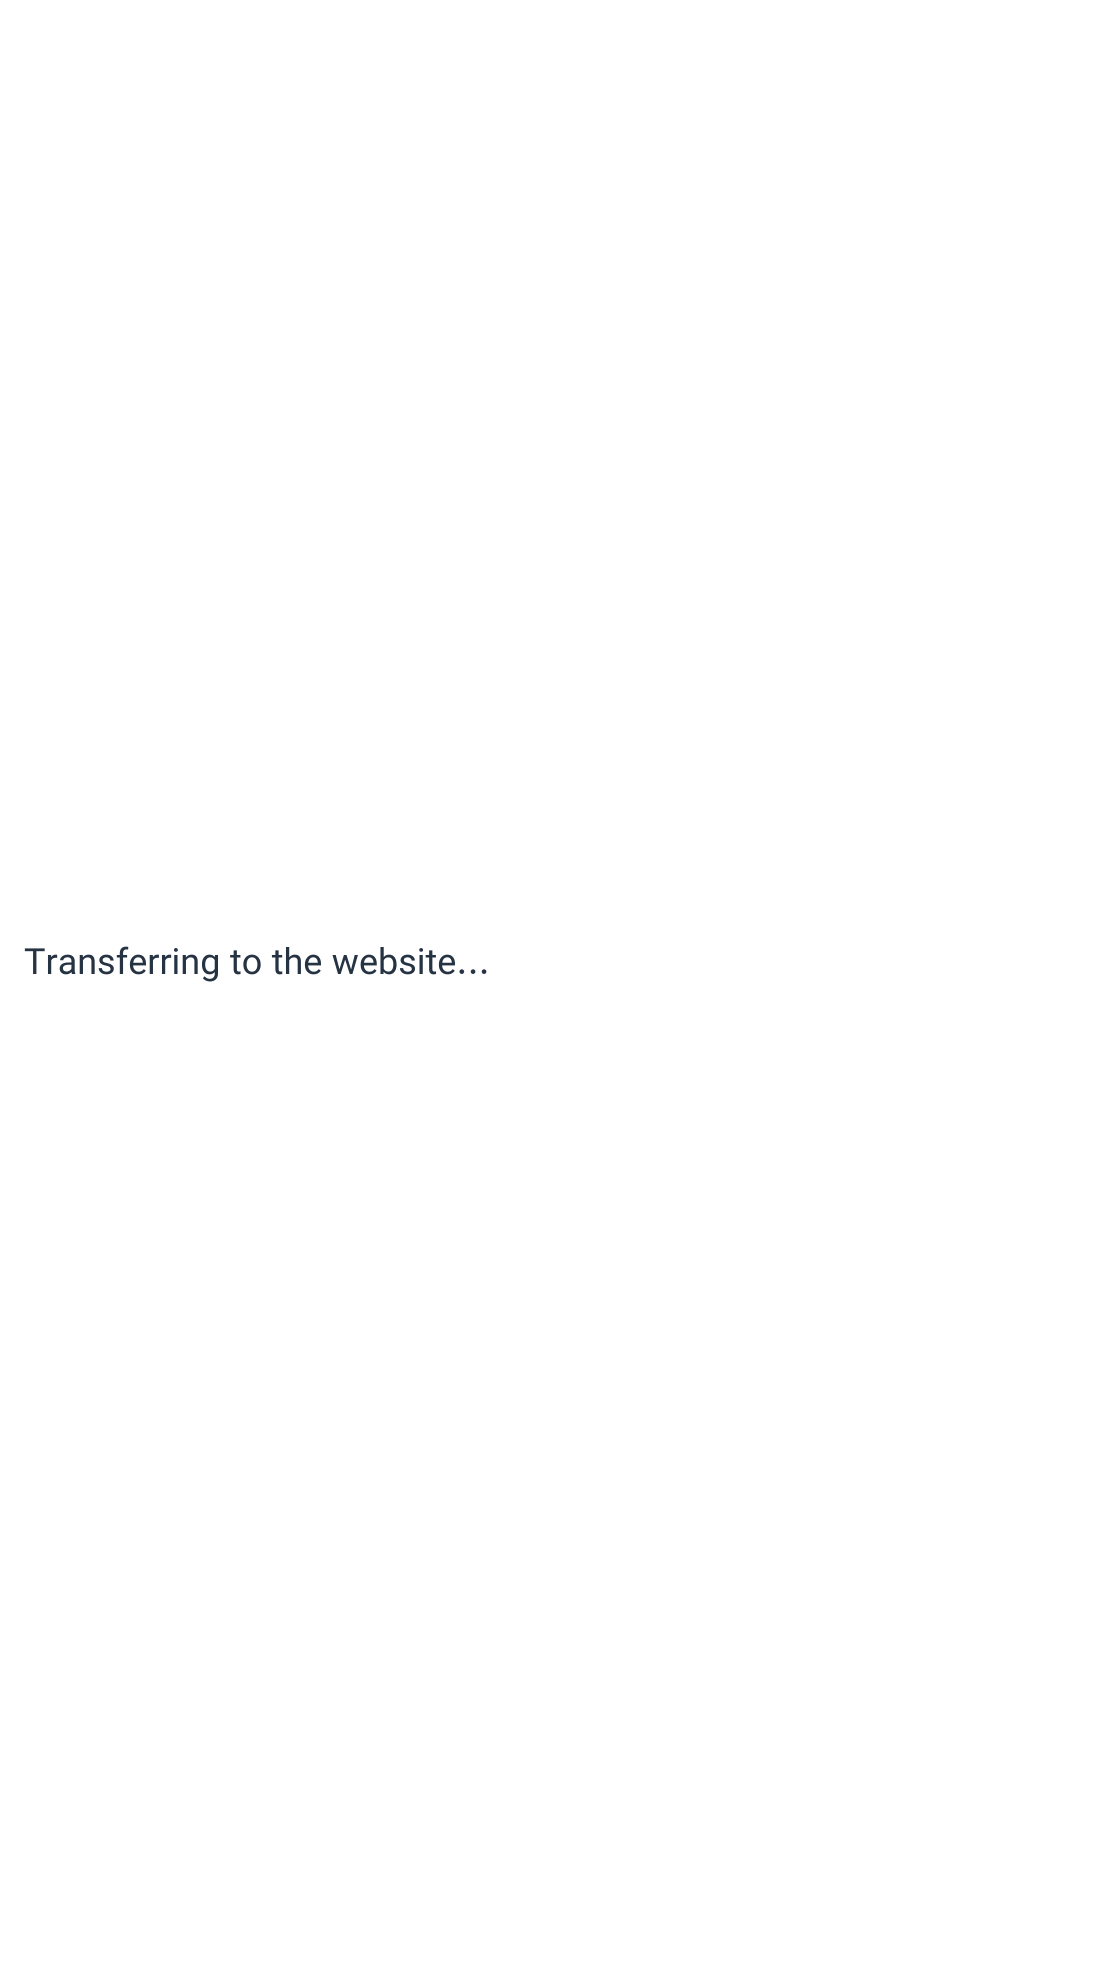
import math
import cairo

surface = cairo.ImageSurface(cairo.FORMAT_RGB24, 1109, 1961)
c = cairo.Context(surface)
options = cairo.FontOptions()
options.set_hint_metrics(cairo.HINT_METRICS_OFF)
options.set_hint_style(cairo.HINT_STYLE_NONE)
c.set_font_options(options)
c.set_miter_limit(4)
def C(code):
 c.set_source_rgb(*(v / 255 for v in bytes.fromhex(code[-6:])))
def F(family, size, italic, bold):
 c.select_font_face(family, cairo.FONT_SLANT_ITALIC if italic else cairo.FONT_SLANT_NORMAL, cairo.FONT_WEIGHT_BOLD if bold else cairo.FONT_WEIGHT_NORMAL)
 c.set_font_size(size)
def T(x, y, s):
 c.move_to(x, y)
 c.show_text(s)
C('ffffff')
c.paint()
F('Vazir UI',36,0,0)
C('253343')
T(24,974,'Transferring to the website...')
surface.write_to_png('o.png')
